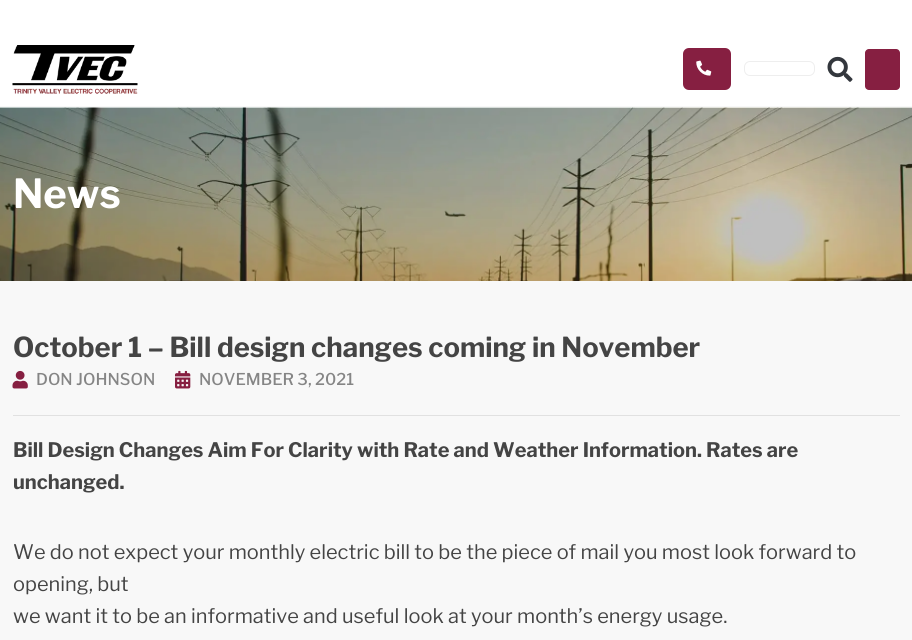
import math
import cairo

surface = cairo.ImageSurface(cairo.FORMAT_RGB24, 912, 640)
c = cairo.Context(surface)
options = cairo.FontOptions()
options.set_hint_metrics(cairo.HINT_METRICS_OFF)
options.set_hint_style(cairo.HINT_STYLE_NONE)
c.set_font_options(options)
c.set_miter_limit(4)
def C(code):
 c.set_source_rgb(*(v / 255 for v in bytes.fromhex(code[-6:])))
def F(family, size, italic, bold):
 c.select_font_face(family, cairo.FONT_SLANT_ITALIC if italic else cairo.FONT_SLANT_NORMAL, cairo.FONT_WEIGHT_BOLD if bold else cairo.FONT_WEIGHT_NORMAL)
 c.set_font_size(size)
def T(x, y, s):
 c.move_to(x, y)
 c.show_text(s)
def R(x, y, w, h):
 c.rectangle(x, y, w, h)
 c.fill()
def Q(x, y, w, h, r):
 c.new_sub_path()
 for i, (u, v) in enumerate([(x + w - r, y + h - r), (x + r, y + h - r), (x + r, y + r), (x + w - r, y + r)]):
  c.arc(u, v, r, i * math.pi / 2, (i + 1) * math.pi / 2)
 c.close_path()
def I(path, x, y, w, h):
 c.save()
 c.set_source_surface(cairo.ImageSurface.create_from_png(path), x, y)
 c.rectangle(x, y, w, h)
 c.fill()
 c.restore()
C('ffffff')
c.paint()
C('f8f8f8')
R(0,106,912,1)
I('1.png',12,45,126,49)
C('861f41')
Q(683,48,48,42,6)
c.fill()
I('2.png',696,60,16,16)
Q(744.5,61.5,70,14,5.5)
C('eeeeee')
c.set_line_width(1)
c.stroke()
I('3.png',827,56,26,26)
C('861f41')
Q(865,49,35,41,4)
c.fill()
I('4.png',0,107,912,174)
F('Libre Franklin',40,0,1)
C('ffffff')
T(13,208,'News')
C('f8f8f8')
R(0,281,912,359)
F('Libre Franklin',27.5,0,1)
C('444444')
T(13,357,'October 1 – Bill design changes coming in November')
I('5.png',12,370,16,19)
F('Libre Franklin Medium',16.25,0,0)
C('858585')
T(36,385,'DON JOHNSON')
I('6.png',175,370,16,19)
T(199,385,'NOVEMBER 3, 2021')
C('e1e1e1')
R(13,415,887,1)
F('Libre Franklin',20,0,1)
C('444444')
T(13,457,'Bill Design Changes Aim For Clarity with Rate and Weather Information. Rates are')
T(13,489,'unchanged.')
F('Libre Franklin',20,0,0)
T(13,559,'We do not expect your monthly electric bill to be the piece of mail you most look forward to')
T(13,591,'opening, but')
T(13,623,'we want it to be an informative and useful look at your month’s energy usage.')
surface.write_to_png('o.png')
